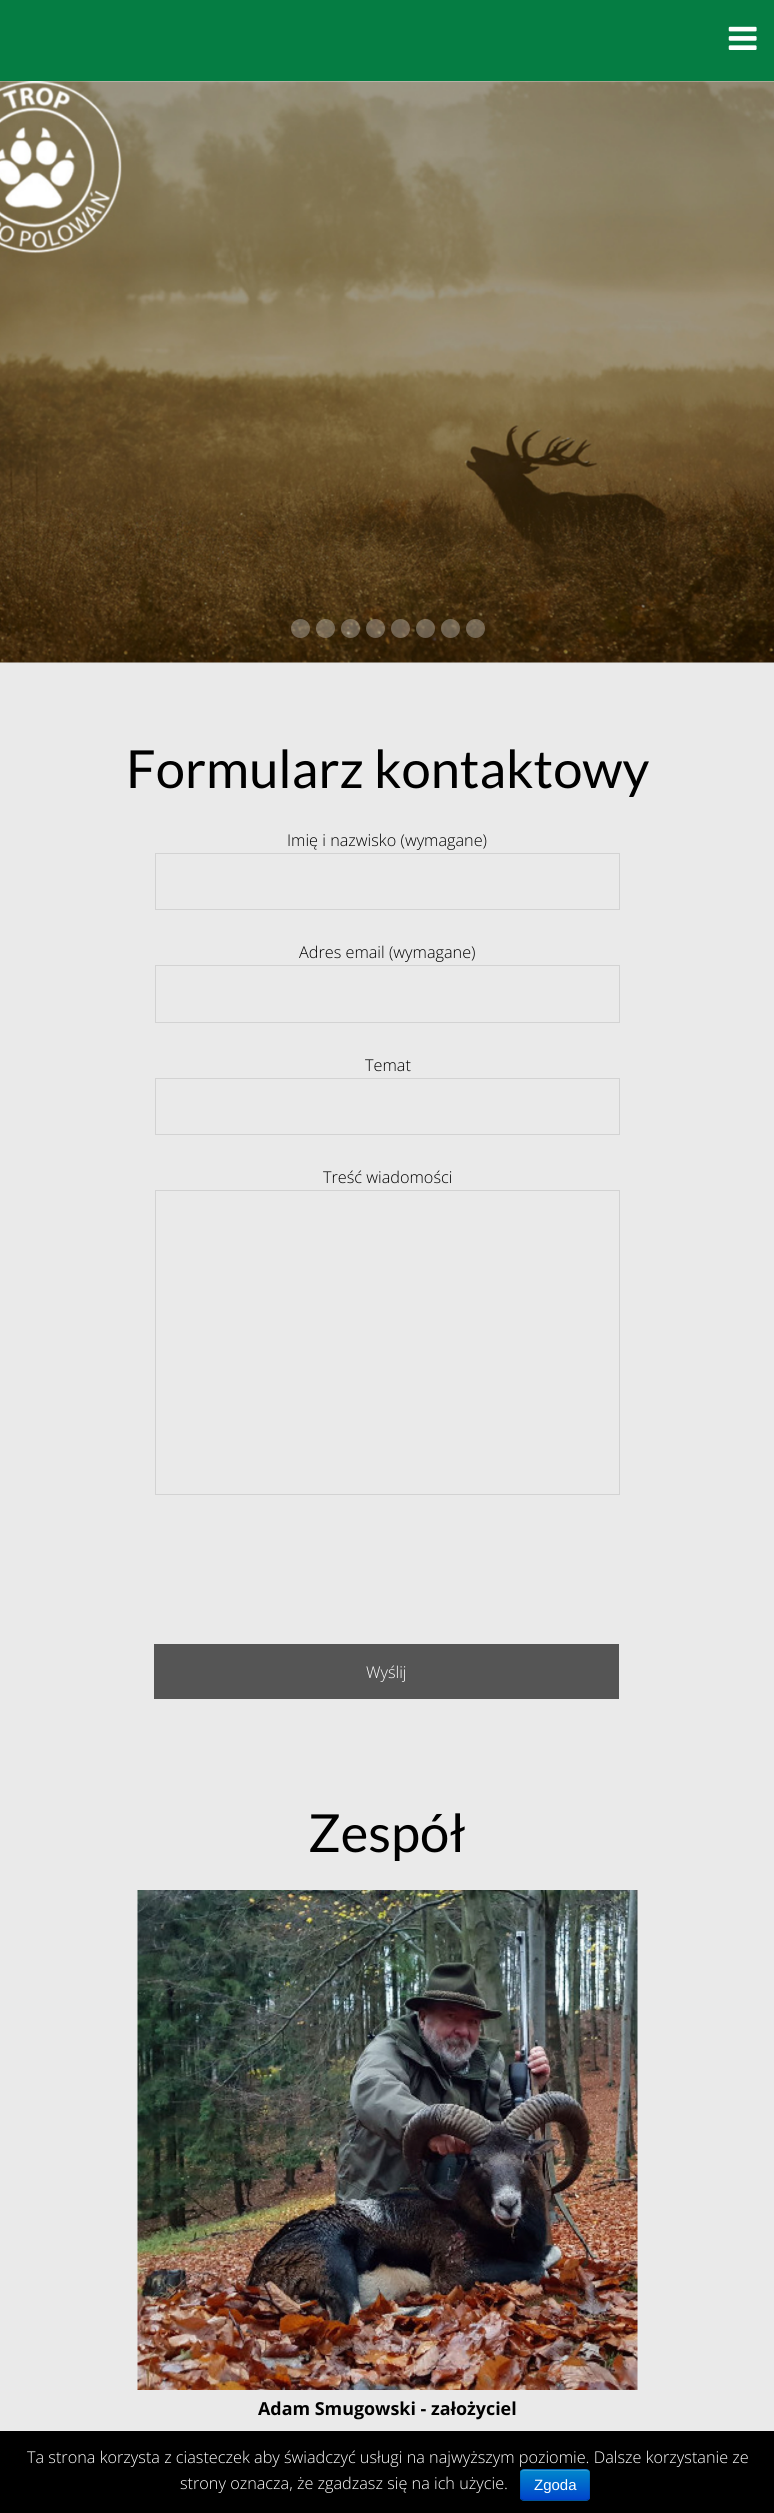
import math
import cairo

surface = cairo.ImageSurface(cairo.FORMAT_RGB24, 774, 2513)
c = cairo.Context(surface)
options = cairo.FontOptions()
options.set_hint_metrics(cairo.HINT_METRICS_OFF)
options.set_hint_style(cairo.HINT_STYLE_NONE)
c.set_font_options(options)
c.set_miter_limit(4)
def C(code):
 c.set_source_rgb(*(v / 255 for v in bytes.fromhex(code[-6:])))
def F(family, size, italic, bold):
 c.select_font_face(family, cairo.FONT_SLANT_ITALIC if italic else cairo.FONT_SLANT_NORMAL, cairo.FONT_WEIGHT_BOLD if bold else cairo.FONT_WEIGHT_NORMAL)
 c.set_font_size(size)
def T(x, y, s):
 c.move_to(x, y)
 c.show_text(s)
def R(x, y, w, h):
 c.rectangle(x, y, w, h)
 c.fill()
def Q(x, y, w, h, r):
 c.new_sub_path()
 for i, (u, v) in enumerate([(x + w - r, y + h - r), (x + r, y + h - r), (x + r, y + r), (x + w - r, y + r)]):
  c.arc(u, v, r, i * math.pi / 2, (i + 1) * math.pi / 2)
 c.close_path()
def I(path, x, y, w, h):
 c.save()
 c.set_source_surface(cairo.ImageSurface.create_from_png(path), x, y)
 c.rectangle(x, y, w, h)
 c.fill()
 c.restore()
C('eaeaea')
c.paint()
C('057d43')
R(0,0,774,81)
I('1.png',728,26,29,24)
I('2.png',0,81,774,582)
c.set_source_rgba(1,1,1,0.3)
c.arc(300.5,628.5,9.5,0,2 * math.pi)
c.fill()
c.arc(325.5,628.5,9.5,0,2 * math.pi)
c.fill()
c.arc(350.5,628.5,9.5,0,2 * math.pi)
c.fill()
c.arc(375.5,628.5,9.5,0,2 * math.pi)
c.fill()
c.arc(400.5,628.5,9.5,0,2 * math.pi)
c.fill()
c.arc(425.5,628.5,9.5,0,2 * math.pi)
c.fill()
c.arc(450.5,628.5,9.5,0,2 * math.pi)
c.fill()
c.arc(475.5,628.5,9.5,0,2 * math.pi)
c.fill()
F('Lato',52.5,0,0)
C('000000')
T(126,788,'Formularz kontaktowy')
F('Open Sans Light',16.25,0,0)
T(287,846,'Imię i nazwisko (wymagane)')
c.rectangle(155.5,853.5,464,56)
C('d3d3d3')
c.set_line_width(1)
c.stroke()
C('000000')
T(299,958,'Adres email (wymagane)')
c.rectangle(155.5,965.5,464,57)
C('d3d3d3')
c.stroke()
C('000000')
T(365,1071,'Temat')
c.rectangle(155.5,1078.5,464,56)
C('d3d3d3')
c.stroke()
C('000000')
T(323,1183,'Treść wiadomości')
c.rectangle(155.5,1190.5,464,304)
C('d3d3d3')
c.stroke()
C('555555')
R(154,1644,465,55)
C('ffffff')
T(366,1678,'Wyślij')
F('Lato',52.5,0,0)
C('000000')
T(308,1852,'Zespół')
I('3.png',137,1890,501,500)
F('Open Sans',17.9,0,1)
T(258,2415,'Adam Smugowski - założyciel')
R(0,2431,774,82)
F('Open Sans Light',16.25,0,0)
C('ffffff')
T(27,2463,'Ta strona korzysta z ciasteczek aby świadczyć usługi na najwyższym poziomie. Dalsze korzystanie ze')
T(180,2489,'strony oznacza, że zgadzasz się na ich użycie.')
C('006dcc')
Q(520,2469,70,32,4)
c.fill()
c.save()
Q(520,2469,70,32,4)
c.clip()
gradient = cairo.LinearGradient(555,2470,555,2500)
gradient.add_color_stop_rgba(0,0,0.533,0.8,1)
gradient.add_color_stop_rgba(1,0,0.267,0.8,1)
c.set_source(gradient)
R(520,2470,70,30)
c.restore()
c.set_source_rgba(1,1,1,0.2)
c.new_path()
c.move_to(524,2471)
c.line_to(586,2471)
c.curve_to(588,2471,589,2472,589,2474)
c.curve_to(589,2467,582,2470,576,2470)
c.line_to(534,2470)
c.curve_to(528,2470,521,2467,521,2474)
c.curve_to(521,2472,522,2471,524,2471)
c.close_path()
c.fill()
c.new_path()
c.move_to(588.5,2499.5)
c.line_to(586,2500.5)
c.line_to(524,2500.5)
c.line_to(521.5,2499.5)
c.set_source_rgba(0,0,0,0.25)
c.set_line_width(1.2)
c.stroke()
c.new_path()
c.move_to(521.5,2499.5)
c.curve_to(519.5,2497.5,520.5,2488,520.5,2485)
c.curve_to(520.5,2468,517.5,2469.5,534,2469.5)
c.line_to(576,2469.5)
c.curve_to(592.5,2469.5,589.5,2468,589.5,2485)
c.curve_to(589.5,2488,590.5,2497.5,588.5,2499.5)
c.set_source_rgba(0,0,0,0.1)
c.stroke()
F('Liberation Sans',15,0,0)
C('ffffff')
T(534,2490,'Zgoda')
surface.write_to_png('o.png')
